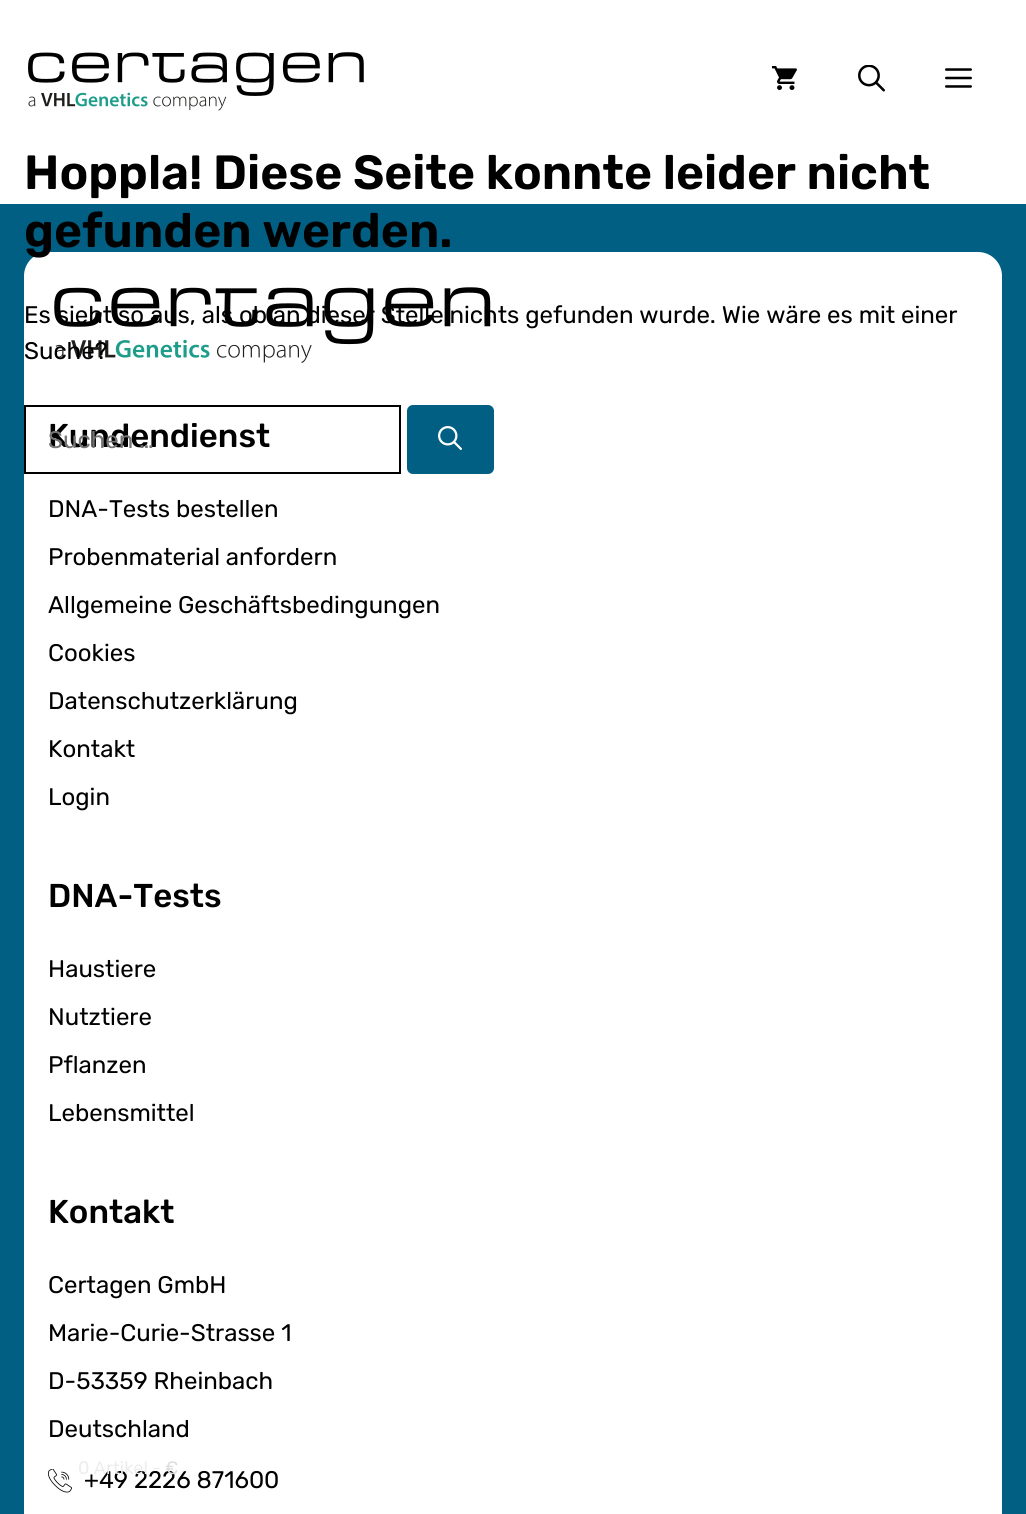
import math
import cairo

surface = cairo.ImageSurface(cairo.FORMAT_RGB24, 1026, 1514)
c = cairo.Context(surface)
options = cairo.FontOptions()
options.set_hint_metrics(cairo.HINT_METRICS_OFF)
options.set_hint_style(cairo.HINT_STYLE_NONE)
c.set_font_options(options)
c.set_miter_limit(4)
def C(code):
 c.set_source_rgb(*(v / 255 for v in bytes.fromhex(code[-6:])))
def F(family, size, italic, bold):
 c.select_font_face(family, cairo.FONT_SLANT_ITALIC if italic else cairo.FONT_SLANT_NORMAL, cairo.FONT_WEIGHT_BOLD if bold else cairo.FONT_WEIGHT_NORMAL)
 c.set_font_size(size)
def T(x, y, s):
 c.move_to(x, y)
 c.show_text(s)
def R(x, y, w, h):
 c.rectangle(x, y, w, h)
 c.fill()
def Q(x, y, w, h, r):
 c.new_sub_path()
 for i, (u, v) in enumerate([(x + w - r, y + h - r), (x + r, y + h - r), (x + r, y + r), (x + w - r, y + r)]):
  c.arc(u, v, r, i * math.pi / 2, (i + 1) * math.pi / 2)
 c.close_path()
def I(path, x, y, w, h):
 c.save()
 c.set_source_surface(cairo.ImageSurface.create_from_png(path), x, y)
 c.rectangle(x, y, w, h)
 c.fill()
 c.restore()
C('ffffff')
c.paint()
I('1.png',28,52,336,59)
I('2.png',772,66,25,24)
I('3.png',858,65,27,27)
I('4.png',945,68,27,20)
F('Rubik SemiBold',48,0,0)
C('000000')
T(24,189,'Hoppla! Diese Seite konnte leider nicht')
C('015f83')
R(0,204,1026,1310)
C('ffffff')
Q(24,252,978,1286,24)
c.fill()
C('000000')
T(24,247,'gefunden werden.')
I('6.png',54,287,437,76)
F('Rubik',24,0,0)
T(24,323,'Es sieht so aus, als ob an dieser Stelle nichts gefunden wurde. Wie wäre es mit einer')
T(24,359,'Suche?')
c.rectangle(25,406,375,67)
c.stroke()
F('Rubik Medium',33,0,0)
T(48,447,'Kundendienst')
F('Rubik',24,0,0)
C('757575')
T(48,448,'Suchen …')
C('015f83')
Q(407,405,87,69,6)
c.fill()
I('5.png',438,426,24,24)
C('000000')
T(48,517,'DNA-Tests bestellen')
T(48,565,'Probenmaterial anfordern')
T(48,613,'Allgemeine Geschäftsbedingungen')
T(48,661,'Cookies')
T(48,709,'Datenschutzerklärung')
T(48,757,'Kontakt')
T(48,805,'Login')
F('Rubik Medium',33,0,0)
T(48,907,'DNA-Tests')
F('Rubik',24,0,0)
T(48,977,'Haustiere')
T(48,1025,'Nutztiere')
T(48,1073,'Pflanzen')
T(48,1121,'Lebensmittel')
F('Rubik Medium',33,0,0)
T(48,1223,'Kontakt')
F('Rubik',24,0,0)
T(48,1293,'Certagen GmbH')
T(48,1341,'Marie-Curie-Strasse 1')
T(48,1389,'D-53359 Rheinbach')
T(48,1437,'Deutschland')
I('7.png',48,1469,24,24)
T(84,1488,'+49 2226 871600')
F('Rubik',18,0,0)
C('ededed')
T(78,1474,'0 Artikel -')
C('dedede')
T(165,1474,'€')
surface.write_to_png('o.png')
